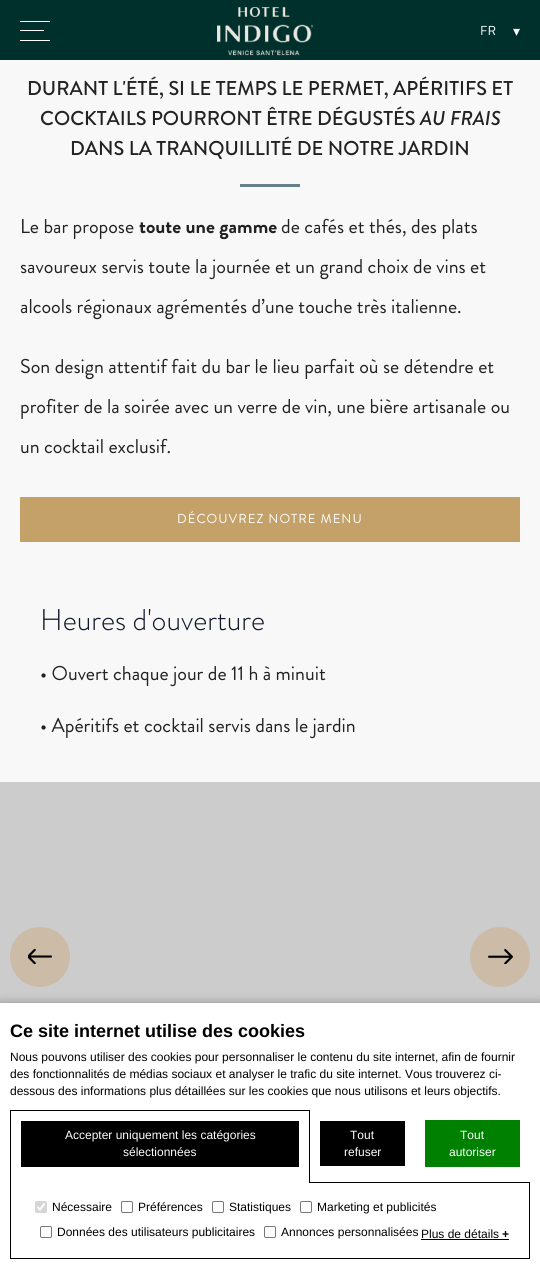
import math
import cairo

surface = cairo.ImageSurface(cairo.FORMAT_RGB24, 540, 1269)
c = cairo.Context(surface)
options = cairo.FontOptions()
options.set_hint_metrics(cairo.HINT_METRICS_OFF)
options.set_hint_style(cairo.HINT_STYLE_NONE)
c.set_font_options(options)
c.set_miter_limit(4)
def C(code):
 c.set_source_rgb(*(v / 255 for v in bytes.fromhex(code[-6:])))
def F(family, size, italic, bold):
 c.select_font_face(family, cairo.FONT_SLANT_ITALIC if italic else cairo.FONT_SLANT_NORMAL, cairo.FONT_WEIGHT_BOLD if bold else cairo.FONT_WEIGHT_NORMAL)
 c.set_font_size(size)
def T(x, y, s):
 c.move_to(x, y)
 c.show_text(s)
def L(x, y, s, letter, word):
 c.move_to(x, y)
 for ch in s:
  c.show_text(ch)
  c.rel_move_to(letter + word * (ch == ' '), 0)
def R(x, y, w, h):
 c.rectangle(x, y, w, h)
 c.fill()
def Q(x, y, w, h, r):
 c.new_sub_path()
 for i, (u, v) in enumerate([(x + w - r, y + h - r), (x + r, y + h - r), (x + r, y + r), (x + w - r, y + r)]):
  c.arc(u, v, r, i * math.pi / 2, (i + 1) * math.pi / 2)
 c.close_path()
def S(x, y, w, h, r, blur, alpha):
 c.push_group_with_content(cairo.CONTENT_ALPHA)
 c.set_operator(cairo.OPERATOR_SOURCE)
 for i in range(15, -16, -2):
  e = blur * i / 6
  if min(w, h) + 2 * e > 0:
   c.set_source_rgba(0, 0, 0, alpha * math.erfc((i - 1) / 8.5) / 2)
   Q(x - e, y - e, w + 2 * e, h + 2 * e, max(0, min(r + e + blur * .6, min(w, h) / 2 + e)))
   c.fill()
 c.mask(c.pop_group())
def I(path, x, y, w, h):
 c.save()
 c.set_source_surface(cairo.ImageSurface.create_from_png(path), x, y)
 c.rectangle(x, y, w, h)
 c.fill()
 c.restore()
C('f8f8f8')
c.paint()
C('00302c')
R(0,0,540,60)
C('ffffff')
R(20,21,30,1)
R(20,40,30,1)
R(20,30,24,1)
I('1.png',217,7,96,49)
F('Brandon Grotesque',13,0,0)
T(480,35,'FR')
F('DejaVu Sans',14,0,0)
T(513,36,'▾')
F('Brandon Grotesque Medium',20,0,0)
C('222222')
T(27,95,'DURANT L\'ÉTÉ, SI LE TEMPS LE PERMET, APÉRITIFS ET')
T(40,125,'COCKTAILS POURRONT ÊTRE DÉGUSTÉS')
F('Brandon Grotesque Medium',20,1,0)
T(420,125,'AU FRAIS')
F('Brandon Grotesque Medium',20,0,0)
T(70,155,'DANS LA TRANQUILLITÉ DE NOTRE JARDIN')
C('65828a')
R(240,184,60,3)
F('Brandon Grotesque',20,0,0)
C('222222')
T(20,233,'Le bar propose')
F('Brandon Grotesque',20,0,1)
T(139,233,'toute une gamme')
F('Brandon Grotesque',20,0,0)
T(281,233,'de cafés et thés, des plats')
T(20,273,'savoureux servis toute la journée et un grand choix de vins et')
T(20,313,'alcools régionaux agrémentés d’une touche très italienne.')
T(20,373,'Son design attentif fait du bar le lieu parfait où se détendre et')
T(20,413,'profiter de la soirée avec un verre de vin, une bière artisanale ou')
T(20,453,'un cocktail exclusif.')
C('c4a168')
R(20,497,500,45)
F('Brandon Grotesque',13,0,0)
C('ffffff')
L(177,523,'DÉCOUVREZ NOTRE MENU',1,0)
F('Brandon Grotesque Light',30,0,0)
C('11182a')
T(40,630,'Heures d\'ouverture')
F('Brandon Grotesque',20,0,0)
C('222222')
T(40,680,'• Ouvert chaque jour de 11 h à minuit')
T(40,732,'• Apéritifs et cocktail servis dans le jardin')
C('cccccc')
R(0,782,540,221)
C('cbbba7')
c.new_path()
c.move_to(40,987)
c.curve_to(23,987,10,973,10,957)
c.curve_to(10,940,23,927,40,927)
c.curve_to(57,927,70,940,70,957)
c.curve_to(70,973,57,987,40,987)
c.close_path()
c.fill()
I('2.png',28,949,24,15)
c.arc(500,957,30,0,2 * math.pi)
c.fill()
I('3.png',488,949,25,15)
C('000000')
S(0,1003,540,266,0,5,.3)
C('ffffff')
R(0,1003,540,266)
F('Liberation Sans',18,0,1)
C('000000')
T(10,1037,'Ce site internet utilise des cookies')
F('Liberation Sans',12,0,0)
T(10,1061,'Nous pouvons utiliser des cookies pour personnaliser le contenu du site internet, afin de fournir')
T(10,1078,'des fonctionnalités de médias sociaux et analyser le trafic du site internet. Vous trouverez ci-')
T(10,1095,'dessous des informations plus détaillées sur les cookies que nous utilisons et leurs objectifs.')
R(10,1110,300,1)
R(309,1110,1,72)
R(10,1110,1,72)
R(21,1121,278,46)
C('ffffff')
T(65,1139,'Accepter uniquement les catégories')
T(123,1156,'sélectionnées')
c.rectangle(10.5,1182.5,519,76)
C('000000')
c.set_line_width(1)
c.stroke()
C('ffffff')
R(11,1182,298,1)
C('000000')
R(320,1121,85,45)
C('ffffff')
T(350,1139,'Tout')
T(344,1156,'refuser')
C('008000')
R(425,1120,95,47)
C('ffffff')
T(460,1139,'Tout')
T(449,1156,'autoriser')
C('d6d6d6')
Q(35,1201,12,12,2)
c.fill()
c.new_path()
c.move_to(37.5,1207)
c.line_to(40,1209.5)
c.line_to(44.5,1203.5)
C('ffffff')
c.set_line_width(1.9)
c.stroke()
C('000000')
T(52,1211,'Nécessaire')
Q(121.5,1201.5,11,11,1.5)
C('767676')
c.set_line_width(1)
c.stroke()
C('000000')
T(138,1211,'Préférences')
Q(212.5,1201.5,11,11,1.5)
C('767676')
c.stroke()
C('000000')
T(229,1211,'Statistiques')
Q(300.5,1201.5,11,11,1.5)
C('767676')
c.stroke()
C('000000')
T(317,1211,'Marketing et publicités')
Q(40.5,1226.5,11,11,1.5)
C('767676')
c.stroke()
C('000000')
T(57,1236,'Données des utilisateurs publicitaires')
Q(264.5,1226.5,11,11,1.5)
C('767676')
c.stroke()
C('000000')
T(281,1236,'Annonces personnalisées')
T(421,1238,'Plus de détails')
R(421,1239,88,1)
F('Liberation Sans',12,0,1)
T(502,1238,'+')
surface.write_to_png('o.png')
